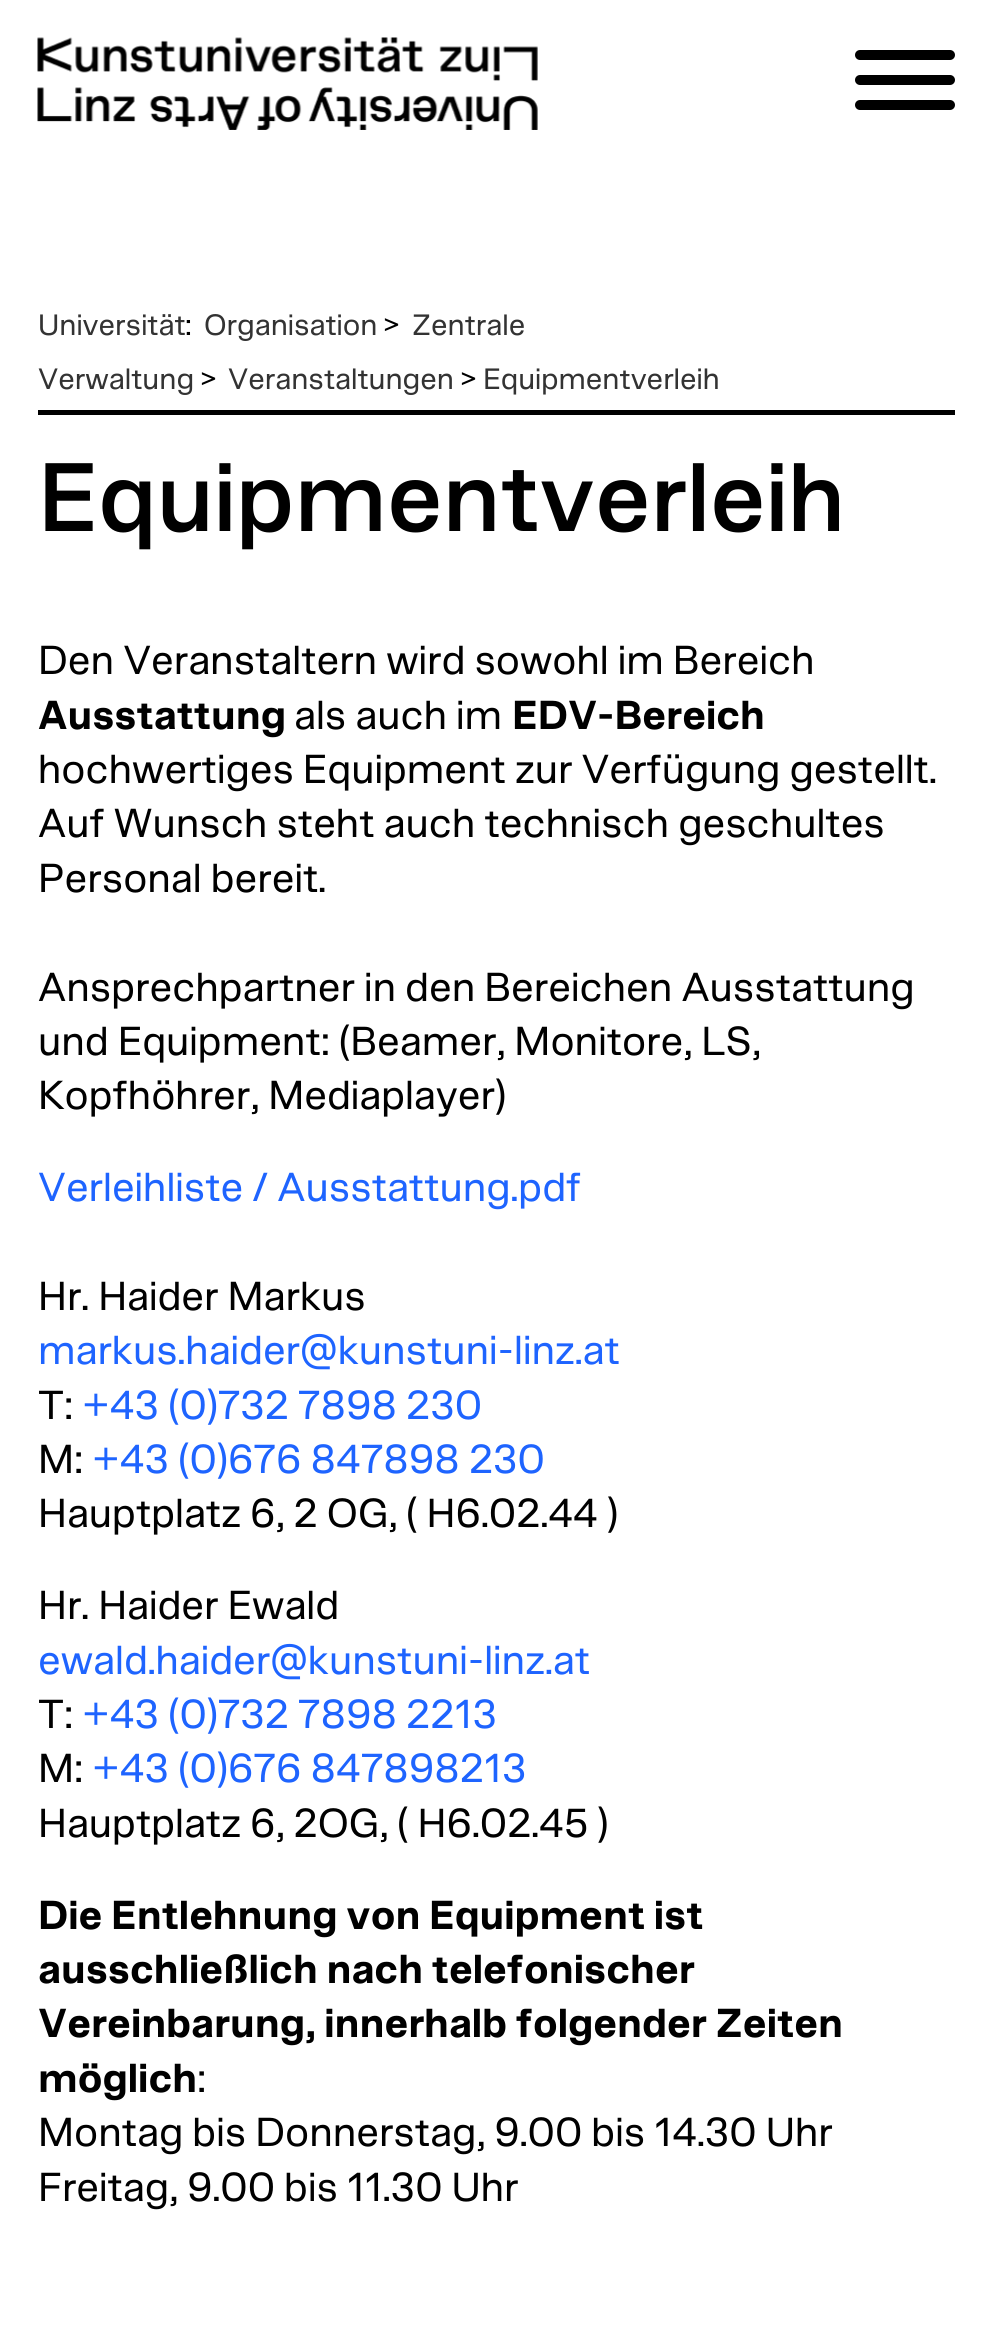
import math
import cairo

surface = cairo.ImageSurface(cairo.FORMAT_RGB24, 991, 2343)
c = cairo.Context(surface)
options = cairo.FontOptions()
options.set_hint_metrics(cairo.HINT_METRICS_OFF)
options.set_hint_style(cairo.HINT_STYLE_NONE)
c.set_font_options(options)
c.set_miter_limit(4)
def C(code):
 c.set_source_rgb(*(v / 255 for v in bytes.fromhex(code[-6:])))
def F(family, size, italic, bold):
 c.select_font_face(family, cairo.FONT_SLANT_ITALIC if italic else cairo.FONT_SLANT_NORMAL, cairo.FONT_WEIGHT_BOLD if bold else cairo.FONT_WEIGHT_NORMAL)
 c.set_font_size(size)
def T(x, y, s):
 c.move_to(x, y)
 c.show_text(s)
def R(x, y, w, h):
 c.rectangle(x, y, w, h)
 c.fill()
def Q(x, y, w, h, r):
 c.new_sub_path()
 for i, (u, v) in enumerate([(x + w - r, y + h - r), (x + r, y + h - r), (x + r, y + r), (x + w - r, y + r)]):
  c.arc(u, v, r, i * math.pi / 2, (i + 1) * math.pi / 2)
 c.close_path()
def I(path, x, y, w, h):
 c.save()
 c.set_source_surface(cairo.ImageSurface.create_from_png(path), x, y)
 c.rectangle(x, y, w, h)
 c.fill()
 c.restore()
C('ffffff')
c.paint()
I('1.png',37,37,501,93)
C('000000')
Q(855,50,100,10,5)
c.fill()
Q(855,75,100,10,5)
c.fill()
Q(855,100,100,10,5)
c.fill()
R(38,410,917,5)
F('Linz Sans',30,0,0)
C('333333')
T(38,335,'Universität')
C('000000')
T(185,335,':')
C('333333')
T(204,335,'Organisation')
C('000000')
T(383,335,'>')
C('333333')
T(412,335,'Zentrale')
T(38,389,'Verwaltung')
C('000000')
T(200,389,'>')
C('333333')
T(228,389,'Veranstaltungen')
C('000000')
T(460,389,'>')
C('333333')
T(483,389,'Equipmentverleih')
F('Linz Sans Medium',99,0,0)
C('000000')
T(38,531,'Equipmentverleih')
F('Linz Sans',41.25,0,0)
T(38,674,'Den Veranstaltern wird sowohl im Bereich')
F('Linz Sans',41.25,0,1)
T(38,729,'Ausstattung')
F('Linz Sans',41.25,0,0)
T(294,729,'als auch im')
F('Linz Sans',41.25,0,1)
T(512,729,'EDV-Bereich')
F('Linz Sans',41.25,0,0)
T(38,783,'hochwertiges Equipment zur Verfügung gestellt.')
T(38,837,'Auf Wunsch steht auch technisch geschultes')
T(38,892,'Personal bereit.')
T(38,1001,'Ansprechpartner in den Bereichen Ausstattung')
T(38,1055,'und Equipment: (Beamer, Monitore, LS,')
T(38,1109,'Kopfhöhrer, Mediaplayer)')
C('1e64ff')
T(38,1201,'Verleihliste / Ausstattung.pdf')
C('000000')
T(38,1310,'Hr. Haider Markus')
C('1e64ff')
T(38,1364,'markus.haider@kunstuni-linz.at')
C('000000')
T(38,1419,'T:')
C('1e64ff')
T(82,1419,'+43 (0)732 7898 230')
C('000000')
T(38,1473,'M:')
C('1e64ff')
T(92,1473,'+43 (0)676 847898 230')
C('000000')
T(38,1527,'Hauptplatz 6, 2 OG, ( H6.02.44 )')
T(38,1619,'Hr. Haider Ewald')
C('1e64ff')
T(38,1674,'ewald.haider@kunstuni-linz.at')
C('000000')
T(38,1728,'T:')
C('1e64ff')
T(82,1728,'+43 (0)732 7898 2213')
C('000000')
T(38,1782,'M:')
C('1e64ff')
T(92,1782,'+43 (0)676 847898213')
C('000000')
T(38,1837,'Hauptplatz 6, 2OG, ( H6.02.45 )')
F('Linz Sans',41.25,0,1)
T(38,1929,'Die Entlehnung von Equipment ist')
T(38,1983,'ausschließlich nach telefonischer')
T(38,2037,'Vereinbarung, innerhalb folgender Zeiten')
T(38,2092,'möglich')
F('Linz Sans',41.25,0,0)
T(197,2092,':')
T(38,2146,'Montag bis Donnerstag, 9.00 bis 14.30 Uhr')
T(38,2201,'Freitag, 9.00 bis 11.30 Uhr')
surface.write_to_png('o.png')
